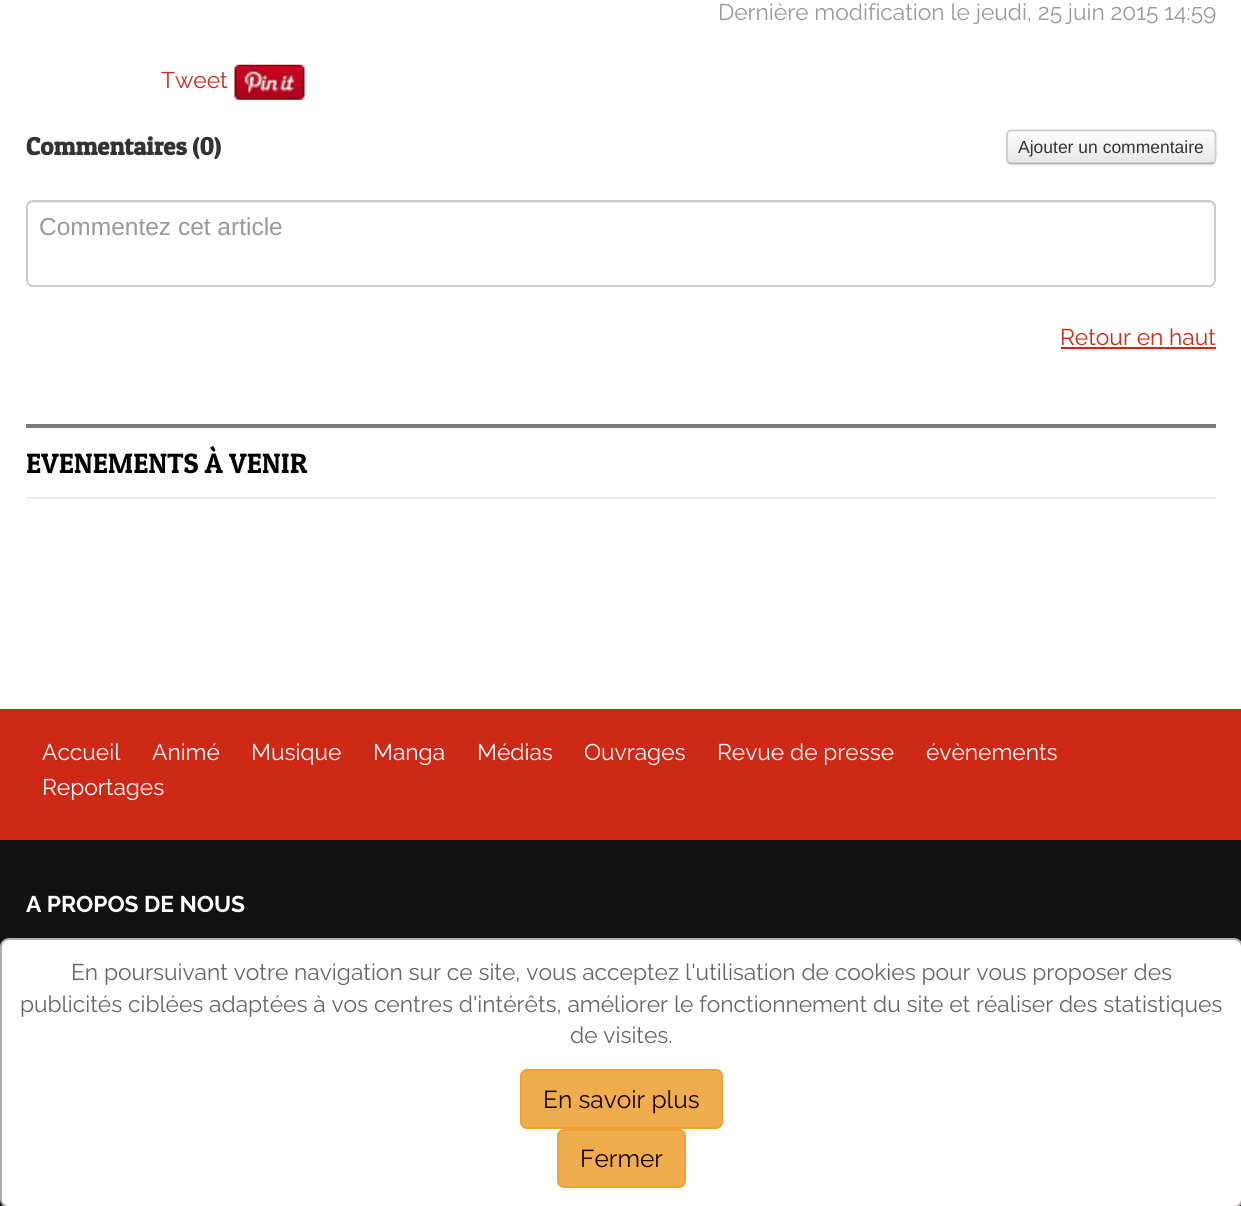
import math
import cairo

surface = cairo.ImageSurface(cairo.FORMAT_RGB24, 1241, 1206)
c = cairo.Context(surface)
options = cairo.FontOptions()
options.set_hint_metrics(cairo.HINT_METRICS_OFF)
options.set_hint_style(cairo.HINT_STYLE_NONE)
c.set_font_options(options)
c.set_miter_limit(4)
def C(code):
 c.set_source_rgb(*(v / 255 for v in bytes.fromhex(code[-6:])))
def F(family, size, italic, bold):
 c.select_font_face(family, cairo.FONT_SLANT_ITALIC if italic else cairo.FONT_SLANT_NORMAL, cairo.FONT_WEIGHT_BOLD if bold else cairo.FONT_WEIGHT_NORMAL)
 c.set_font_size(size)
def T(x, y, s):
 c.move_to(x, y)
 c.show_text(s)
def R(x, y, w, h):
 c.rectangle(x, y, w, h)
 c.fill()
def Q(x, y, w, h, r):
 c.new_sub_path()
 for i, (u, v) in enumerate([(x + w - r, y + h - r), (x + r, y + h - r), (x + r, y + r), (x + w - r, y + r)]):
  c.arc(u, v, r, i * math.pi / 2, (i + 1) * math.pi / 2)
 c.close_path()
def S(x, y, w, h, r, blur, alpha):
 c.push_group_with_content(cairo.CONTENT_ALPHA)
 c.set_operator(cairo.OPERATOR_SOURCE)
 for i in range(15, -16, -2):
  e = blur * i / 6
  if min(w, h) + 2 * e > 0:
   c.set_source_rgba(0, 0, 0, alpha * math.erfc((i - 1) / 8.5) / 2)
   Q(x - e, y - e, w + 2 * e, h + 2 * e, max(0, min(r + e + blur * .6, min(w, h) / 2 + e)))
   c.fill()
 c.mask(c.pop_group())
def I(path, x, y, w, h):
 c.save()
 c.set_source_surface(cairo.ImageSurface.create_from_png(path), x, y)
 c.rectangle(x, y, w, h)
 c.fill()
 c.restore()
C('ce2917')
c.paint()
C('ffffff')
R(0,0,1241,709)
F('Raleway',22.75,0,0)
C('999999')
T(718,20,'Dernière modification le jeudi, 25 juin 2015 14:59')
C('ce2917')
T(161,88,'Tweet')
I('1.png',234,64,71,36)
F('Patua One',25,0,1)
C('333333')
T(26,155,'Commentaires (0)')
C('000000')
S(1006,131,210,35,5,2,.05)
C('f5f5f5')
Q(1006,130,210,35,5)
c.fill()
c.save()
Q(1006,130,210,35,5)
c.clip()
gradient = cairo.LinearGradient(1111,131,1111,163)
gradient.add_color_stop_rgba(0,1,1,1,1)
gradient.add_color_stop_rgba(1,0.902,0.902,0.902,1)
c.set_source(gradient)
R(1006,131,210,32)
c.restore()
c.set_source_rgba(1,1,1,0.2)
c.new_path()
c.move_to(1012,133)
c.line_to(1211,133)
c.curve_to(1216,133,1214,142,1214,144)
c.line_to(1214,162)
c.curve_to(1215,161,1215,160,1215,159)
c.line_to(1215,135)
c.curve_to(1215,133,1213,131,1211,131)
c.line_to(1012,131)
c.curve_to(1010,131,1008,133,1008,135)
c.line_to(1008,136)
c.curve_to(1008,135,1010,133,1012,133)
c.close_path()
c.fill()
c.new_path()
c.move_to(1214,162.5)
c.curve_to(1213.5,163,1212,163.5,1211,163.5)
c.line_to(1011.5,163.5)
c.curve_to(1010.5,163.5,1009,163,1008.5,162.5)
C('b3b3b3')
c.set_line_width(1.8)
c.stroke()
c.new_path()
c.move_to(1008.5,162.5)
c.curve_to(1006,160,1007,150,1007,147)
c.line_to(1007,139)
c.curve_to(1007,135.5,1006.5,130.5,1011.5,130.5)
c.line_to(1211,130.5)
c.curve_to(1216,130.5,1215.5,135.5,1215.5,139)
c.line_to(1215.5,147)
c.curve_to(1215.5,150,1216.5,160,1214,162.5)
C('cccccc')
c.stroke()
F('Liberation Sans',17.5,0,0)
C('333333')
T(1018,153,'Ajouter un commentaire')
C('ececec')
c.new_path()
c.move_to(33,203)
c.line_to(1209,203)
c.curve_to(1212,203,1214,205,1214,208)
c.line_to(1214,283)
c.curve_to(1215,282,1215,281,1215,280)
c.line_to(1215,206)
c.curve_to(1215,203,1213,201,1210,201)
c.line_to(33,201)
c.curve_to(30,201,28,203,28,206)
c.line_to(28,208)
c.curve_to(28,205,30,203,33,203)
c.close_path()
c.fill()
Q(27,201,1188,85,6)
C('cccccc')
c.set_line_width(2)
c.stroke()
F('Liberation Sans',24.5,0,0)
C('999999')
T(39,235,'Commentez cet article')
F('Raleway',22.75,0,0)
C('ce2917')
T(1060,345,'Retour en haut')
R(1061,347,155,2)
C('7d7d7d')
R(26,424,1190,4)
C('ebebeb')
R(26,497,1190,2)
F('Patua One',28,0,0)
C('000000')
T(26,473,'EVENEMENTS À VENIR')
F('Raleway',22.75,0,0)
C('ffffff')
T(42,760,'Accueil')
T(152,760,'Animé')
T(251,760,'Musique')
T(373,760,'Manga')
T(477,760,'Médias')
T(584,760,'Ouvrages')
T(717,760,'Revue de presse')
T(926,760,'évènements')
T(42,795,'Reportages')
C('111111')
R(0,840,1241,366)
F('Raleway',22.75,0,1)
C('ffffff')
T(26,912,'A PROPOS DE NOUS')
Q(1,939,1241,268,8)
c.fill_preserve()
C('b3acac')
c.stroke()
F('Raleway',22.75,0,0)
C('666666')
T(71,980,'En poursuivant votre navigation sur ce site, vous acceptez l\'utilisation de cookies pour vous proposer des')
T(20,1012,'publicités ciblées adaptées à vos centres d\'intérêts, améliorer le fonctionnement du site et réaliser des statistiques')
T(570,1043,'de visites.')
C('f0ad4e')
Q(521,1070,201,58,6)
c.fill_preserve()
C('eea236')
c.stroke()
F('Raleway',24.5,0,0)
C('170000')
T(543,1108,'En savoir plus')
C('f0ad4e')
Q(558,1130,127,57,6)
c.fill_preserve()
C('eea236')
c.stroke()
C('170000')
T(580,1167,'Fermer')
surface.write_to_png('o.png')
